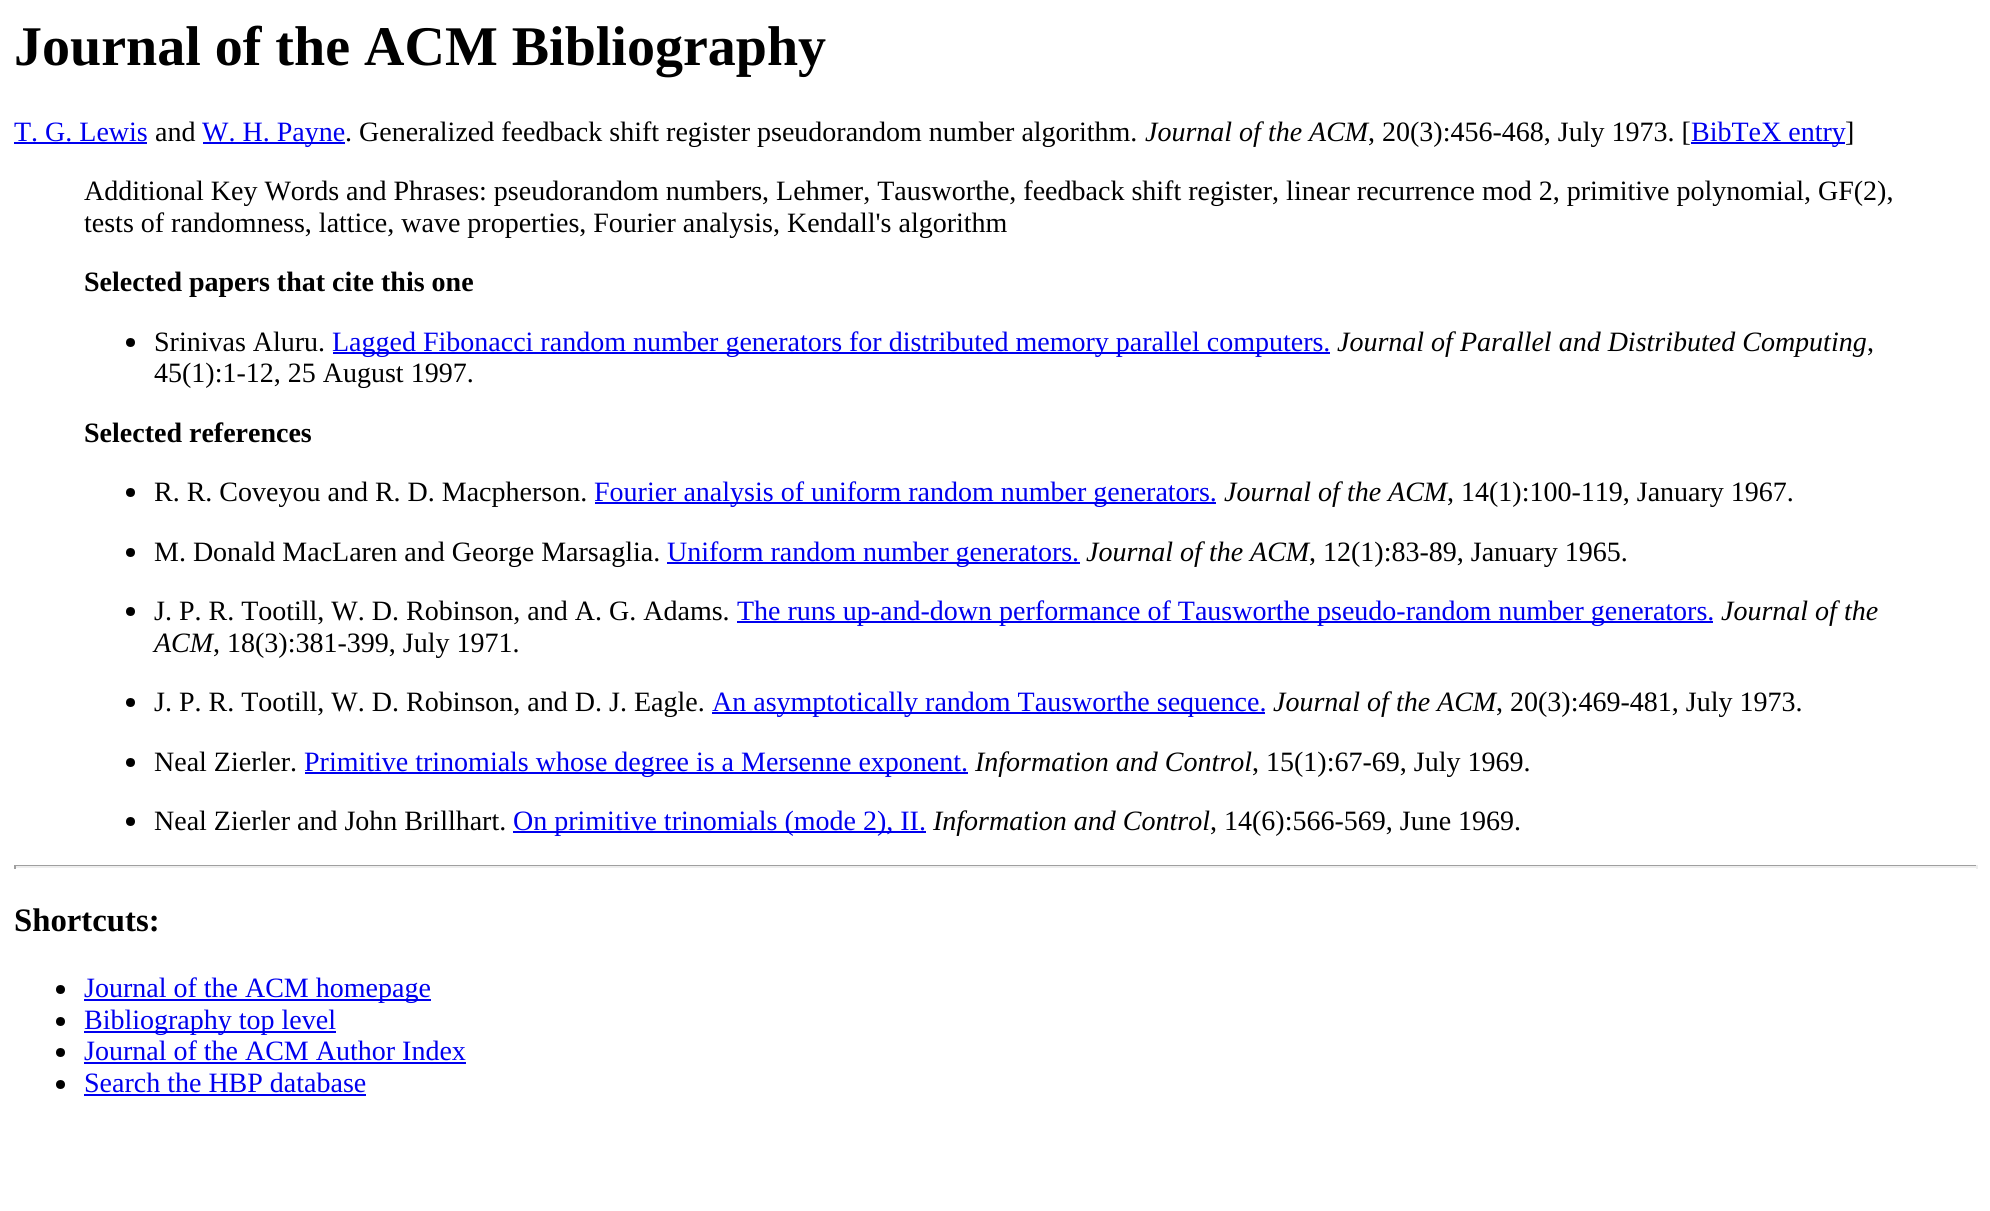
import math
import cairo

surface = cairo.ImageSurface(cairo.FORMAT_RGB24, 1990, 1211)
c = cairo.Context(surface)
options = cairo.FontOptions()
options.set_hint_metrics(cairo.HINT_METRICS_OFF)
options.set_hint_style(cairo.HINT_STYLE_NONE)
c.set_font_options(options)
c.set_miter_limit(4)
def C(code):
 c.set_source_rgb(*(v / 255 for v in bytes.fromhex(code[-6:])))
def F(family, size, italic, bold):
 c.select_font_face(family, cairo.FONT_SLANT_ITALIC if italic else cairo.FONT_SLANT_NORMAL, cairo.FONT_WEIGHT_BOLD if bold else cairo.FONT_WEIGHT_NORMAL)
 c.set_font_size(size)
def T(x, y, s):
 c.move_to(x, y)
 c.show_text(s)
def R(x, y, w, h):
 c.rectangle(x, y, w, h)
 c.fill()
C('ffffff')
c.paint()
F('Liberation Serif',56,0,1)
C('000000')
T(14,65,'Journal of the ACM Bibliography')
F('Liberation Serif',28,0,0)
C('0000ee')
T(14,141,'T. G. Lewis')
R(14,142,133,2)
C('000000')
T(155,141,'and')
C('0000ee')
R(203,142,142,2)
T(202,141,'W. H. Payne')
C('000000')
T(345,141,'. Generalized feedback shift register pseudorandom number algorithm.')
F('Liberation Serif',28,1,0)
T(1145,141,'Journal of the ACM')
F('Liberation Serif',28,0,0)
T(1368,141,', 20(3):456-468, July 1973. [')
C('0000ee')
R(1691,142,154,2)
T(1691,141,'BibTeX entry')
C('000000')
T(1845,141,']')
T(84,200,'Additional Key Words and Phrases: pseudorandom numbers, Lehmer, Tausworthe, feedback shift register, linear recurrence mod 2, primitive polynomial, GF(2),')
T(84,232,'tests of randomness, lattice, wave properties, Fourier analysis, Kendall\'s algorithm')
F('Liberation Serif',28,0,1)
T(84,291,'Selected papers that cite this one')
c.new_path()
c.arc(130.5,342.5,4.5,0,2 * math.pi)
c.fill()
F('Liberation Serif',28,0,0)
T(154,351,'Srinivas Aluru.')
C('0000ee')
R(333,352,997,2)
T(332,351,'Lagged Fibonacci random number generators for distributed memory parallel computers.')
F('Liberation Serif',28,1,0)
C('000000')
T(1337,351,'Journal of Parallel and Distributed Computing')
F('Liberation Serif',28,0,0)
T(1867,351,',')
T(154,382,'45(1):1-12, 25 August 1997.')
F('Liberation Serif',28,0,1)
T(84,442,'Selected references')
c.new_path()
c.arc(130.5,492.5,4.5,0,2 * math.pi)
c.fill()
F('Liberation Serif',28,0,0)
T(154,501,'R. R. Coveyou and R. D. Macpherson.')
C('0000ee')
R(595,502,621,2)
T(594,501,'Fourier analysis of uniform random number generators.')
F('Liberation Serif',28,1,0)
C('000000')
T(1224,501,'Journal of the ACM')
F('Liberation Serif',28,0,0)
T(1447,501,', 14(1):100-119, January 1967.')
c.new_path()
c.arc(130.5,552.5,4.5,0,2 * math.pi)
c.fill()
T(154,561,'M. Donald MacLaren and George Marsaglia.')
C('0000ee')
R(667,562,413,2)
T(667,561,'Uniform random number generators.')
F('Liberation Serif',28,1,0)
C('000000')
T(1086,561,'Journal of the ACM')
F('Liberation Serif',28,0,0)
T(1309,561,', 12(1):83-89, January 1965.')
c.new_path()
c.arc(130.5,611.5,4.5,0,2 * math.pi)
c.fill()
T(154,620,'J. P. R. Tootill, W. D. Robinson, and A. G. Adams.')
C('0000ee')
R(737,621,976,2)
T(737,620,'The runs up-and-down performance of Tausworthe pseudo-random number generators.')
F('Liberation Serif',28,1,0)
C('000000')
T(1721,620,'Journal of the')
T(154,652,'ACM')
F('Liberation Serif',28,0,0)
T(213,652,', 18(3):381-399, July 1971.')
c.new_path()
c.arc(130.5,702.5,4.5,0,2 * math.pi)
c.fill()
T(154,711,'J. P. R. Tootill, W. D. Robinson, and D. J. Eagle.')
C('0000ee')
R(712,712,553,2)
T(712,711,'An asymptotically random Tausworthe sequence.')
F('Liberation Serif',28,1,0)
C('000000')
T(1273,711,'Journal of the ACM')
F('Liberation Serif',28,0,0)
T(1496,711,', 20(3):469-481, July 1973.')
c.new_path()
c.arc(130.5,762.5,4.5,0,2 * math.pi)
c.fill()
T(154,771,'Neal Zierler.')
C('0000ee')
R(305,772,663,2)
T(304,771,'Primitive trinomials whose degree is a Mersenne exponent.')
F('Liberation Serif',28,1,0)
C('000000')
T(975,771,'Information and Control')
F('Liberation Serif',28,0,0)
T(1252,771,', 15(1):67-69, July 1969.')
c.new_path()
c.arc(130.5,821.5,4.5,0,2 * math.pi)
c.fill()
T(154,830,'Neal Zierler and John Brillhart.')
C('0000ee')
R(513,831,413,2)
T(513,830,'On primitive trinomials (mode 2), II.')
F('Liberation Serif',28,1,0)
C('000000')
T(933,830,'Information and Control')
F('Liberation Serif',28,0,0)
T(1210,830,', 14(6):566-569, June 1969.')
C('9f9f9f')
R(14,865,1964,1)
C('eeeeee')
R(1976,865,2,4)
R(14,866,1964,2)
C('9f9f9f')
R(14,865,2,4)
F('Liberation Serif',32.75,0,1)
C('000000')
T(14,931,'Shortcuts:')
c.new_path()
c.arc(60.5,989.5,4.5,0,2 * math.pi)
c.fill()
C('0000ee')
R(84,999,347,2)
F('Liberation Serif',28,0,0)
T(84,997,'Journal of the ACM homepage')
C('000000')
c.new_path()
c.arc(60.5,1021.5,4.5,0,2 * math.pi)
c.fill()
C('0000ee')
R(84,1031,252,2)
T(84,1029,'Bibliography top level')
C('000000')
c.new_path()
c.arc(60.5,1052.5,4.5,0,2 * math.pi)
c.fill()
C('0000ee')
T(84,1060,'Journal of the ACM Author Index')
R(84,1062,382,2)
C('000000')
c.new_path()
c.arc(60.5,1084.5,4.5,0,2 * math.pi)
c.fill()
C('0000ee')
T(84,1092,'Search the HBP database')
R(84,1094,282,2)
surface.write_to_png('o.png')
